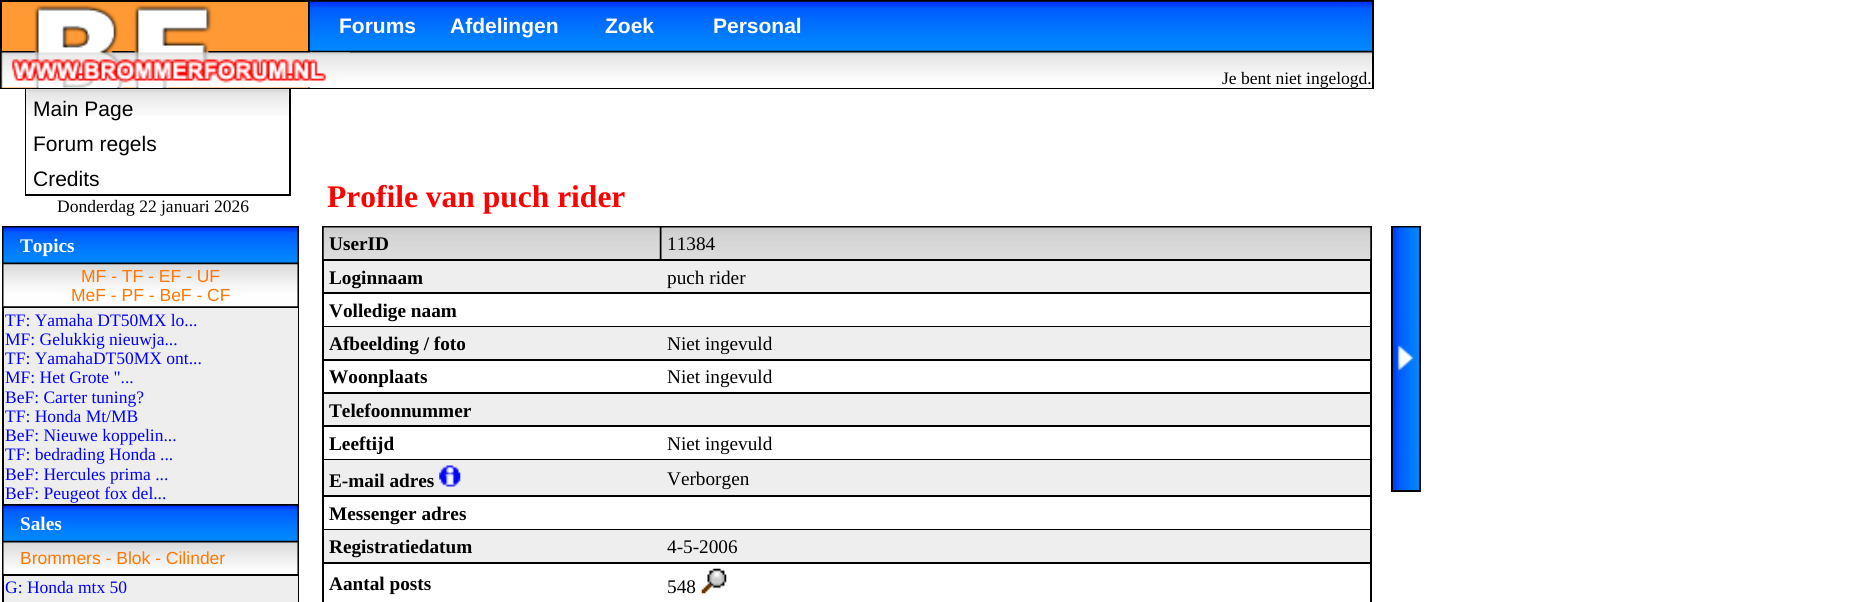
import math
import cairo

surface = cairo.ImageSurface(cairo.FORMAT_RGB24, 1854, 602)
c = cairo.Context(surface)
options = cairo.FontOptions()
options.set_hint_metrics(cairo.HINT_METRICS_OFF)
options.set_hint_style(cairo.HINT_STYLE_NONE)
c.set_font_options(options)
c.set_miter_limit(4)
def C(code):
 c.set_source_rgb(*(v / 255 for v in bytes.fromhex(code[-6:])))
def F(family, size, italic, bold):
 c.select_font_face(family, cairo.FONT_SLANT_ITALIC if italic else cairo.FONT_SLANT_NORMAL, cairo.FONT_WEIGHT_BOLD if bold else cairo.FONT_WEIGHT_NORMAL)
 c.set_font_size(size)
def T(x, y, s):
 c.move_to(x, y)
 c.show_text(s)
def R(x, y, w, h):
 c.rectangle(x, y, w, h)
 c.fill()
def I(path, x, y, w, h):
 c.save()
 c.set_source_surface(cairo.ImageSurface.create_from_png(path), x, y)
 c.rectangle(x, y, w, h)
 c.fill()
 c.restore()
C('ffffff')
c.paint()
C('000000')
R(0,0,1374,89)
C('ff9933')
R(2,2,306,49)
I('2.png',309,1,1063,50)
F('Liberation Sans',21,0,1)
C('ffffff')
T(339,33,'Forums')
C('ff9933')
R(2,87,306,1)
C('ffffff')
R(310,87,1062,1)
I('3.png',309,52,1063,36)
I('1.png',1,5,349,83)
T(450,33,'Afdelingen')
T(605,33,'Zoek')
T(713,33,'Personal')
F('Liberation Serif',17.5,0,0)
C('000000')
T(1222,84,'Je bent niet ingelogd.')
c.rectangle(26,89,264,106)
c.stroke()
C('ffffff')
R(26,89,263,105)
I('4.png',26,89,263,27)
F('Liberation Sans',21,0,0)
C('000000')
T(33,116,'Main Page')
T(33,151,'Forum regels')
T(33,186,'Credits')
F('Liberation Serif',31.5,0,1)
C('ff0000')
T(327,207,'Profile van puch rider')
F('Liberation Serif',17.5,0,0)
C('000000')
T(57,212,'Donderdag 22 januari 2026')
R(2,226,297,376)
I('5.png',3,227,295,36)
F('Liberation Serif',19.25,0,1)
C('ffffff')
T(20,252,'Topics')
I('6.png',3,264,295,43)
F('Liberation Sans',17.5,0,0)
C('ff7700')
T(81,282,'MF - TF - EF - UF')
T(71,301,'MeF - PF - BeF - CF')
C('eeeeee')
R(4,308,294,196)
F('Liberation Serif',17.5,0,0)
C('0000ff')
T(5,326,'TF: Yamaha DT50MX lo...')
T(5,345,'MF: Gelukkig nieuwja...')
T(5,364,'TF: YamahaDT50MX ont...')
T(5,383,'MF: Het Grote "...')
T(5,403,'BeF: Carter tuning?')
T(5,422,'TF: Honda Mt/MB')
T(5,441,'BeF: Nieuwe koppelin...')
T(5,460,'TF: bedrading Honda ...')
T(5,480,'BeF: Hercules prima ...')
T(5,499,'BeF: Peugeot fox del...')
I('7.png',3,505,295,36)
F('Liberation Serif',19.25,0,1)
C('ffffff')
T(20,530,'Sales')
I('8.png',3,542,295,32)
F('Liberation Sans',17.5,0,0)
C('ff7700')
T(20,564,'Brommers - Blok - Cilinder')
C('eeeeee')
R(4,576,294,26)
F('Liberation Serif',17.5,0,0)
C('0000ff')
T(5,593,'G: Honda mtx 50')
C('000000')
R(322,226,1050,376)
I('9.png',323,227,337,32)
F('Liberation Serif',19.25,0,1)
T(329,250,'UserID')
I('10.png',661,227,710,32)
F('Liberation Serif',19.25,0,0)
T(667,250,'11384')
C('eeeeee')
R(324,261,1046,31)
F('Liberation Serif',19.25,0,1)
C('000000')
T(329,284,'Loginnaam')
F('Liberation Serif',19.25,0,0)
T(667,284,'puch rider')
C('ffffff')
R(324,294,1046,32)
F('Liberation Serif',19.25,0,1)
C('000000')
T(329,317,'Volledige naam')
C('eeeeee')
R(324,327,1046,32)
C('000000')
T(329,350,'Afbeelding / foto')
F('Liberation Serif',19.25,0,0)
T(667,350,'Niet ingevuld')
C('ffffff')
R(324,361,1046,31)
F('Liberation Serif',19.25,0,1)
C('000000')
T(329,383,'Woonplaats')
F('Liberation Serif',19.25,0,0)
T(667,383,'Niet ingevuld')
C('eeeeee')
R(324,394,1046,31)
F('Liberation Serif',19.25,0,1)
C('000000')
T(329,417,'Telefoonnummer')
C('ffffff')
R(324,427,1046,32)
C('000000')
T(329,450,'Leeftijd')
F('Liberation Serif',19.25,0,0)
T(667,450,'Niet ingevuld')
C('eeeeee')
R(324,460,1046,35)
F('Liberation Serif',19.25,0,1)
C('000000')
T(329,487,'E-mail adres')
I('11.png',439,465,22,22)
F('Liberation Serif',19.25,0,0)
T(667,485,'Verborgen')
C('ffffff')
R(324,497,1046,32)
F('Liberation Serif',19.25,0,1)
C('000000')
T(329,520,'Messenger adres')
C('eeeeee')
R(324,530,1046,32)
C('000000')
T(329,553,'Registratiedatum')
F('Liberation Serif',19.25,0,0)
T(667,553,'4-5-2006')
C('ffffff')
R(324,564,1046,38)
F('Liberation Serif',19.25,0,1)
C('000000')
T(329,590,'Aantal posts')
F('Liberation Serif',19.25,0,0)
T(667,593,'548')
I('12.png',701,568,26,26)
c.rectangle(1392,227,28,264)
c.stroke()
I('13.png',1393,227,27,263)
surface.write_to_png('o.png')
